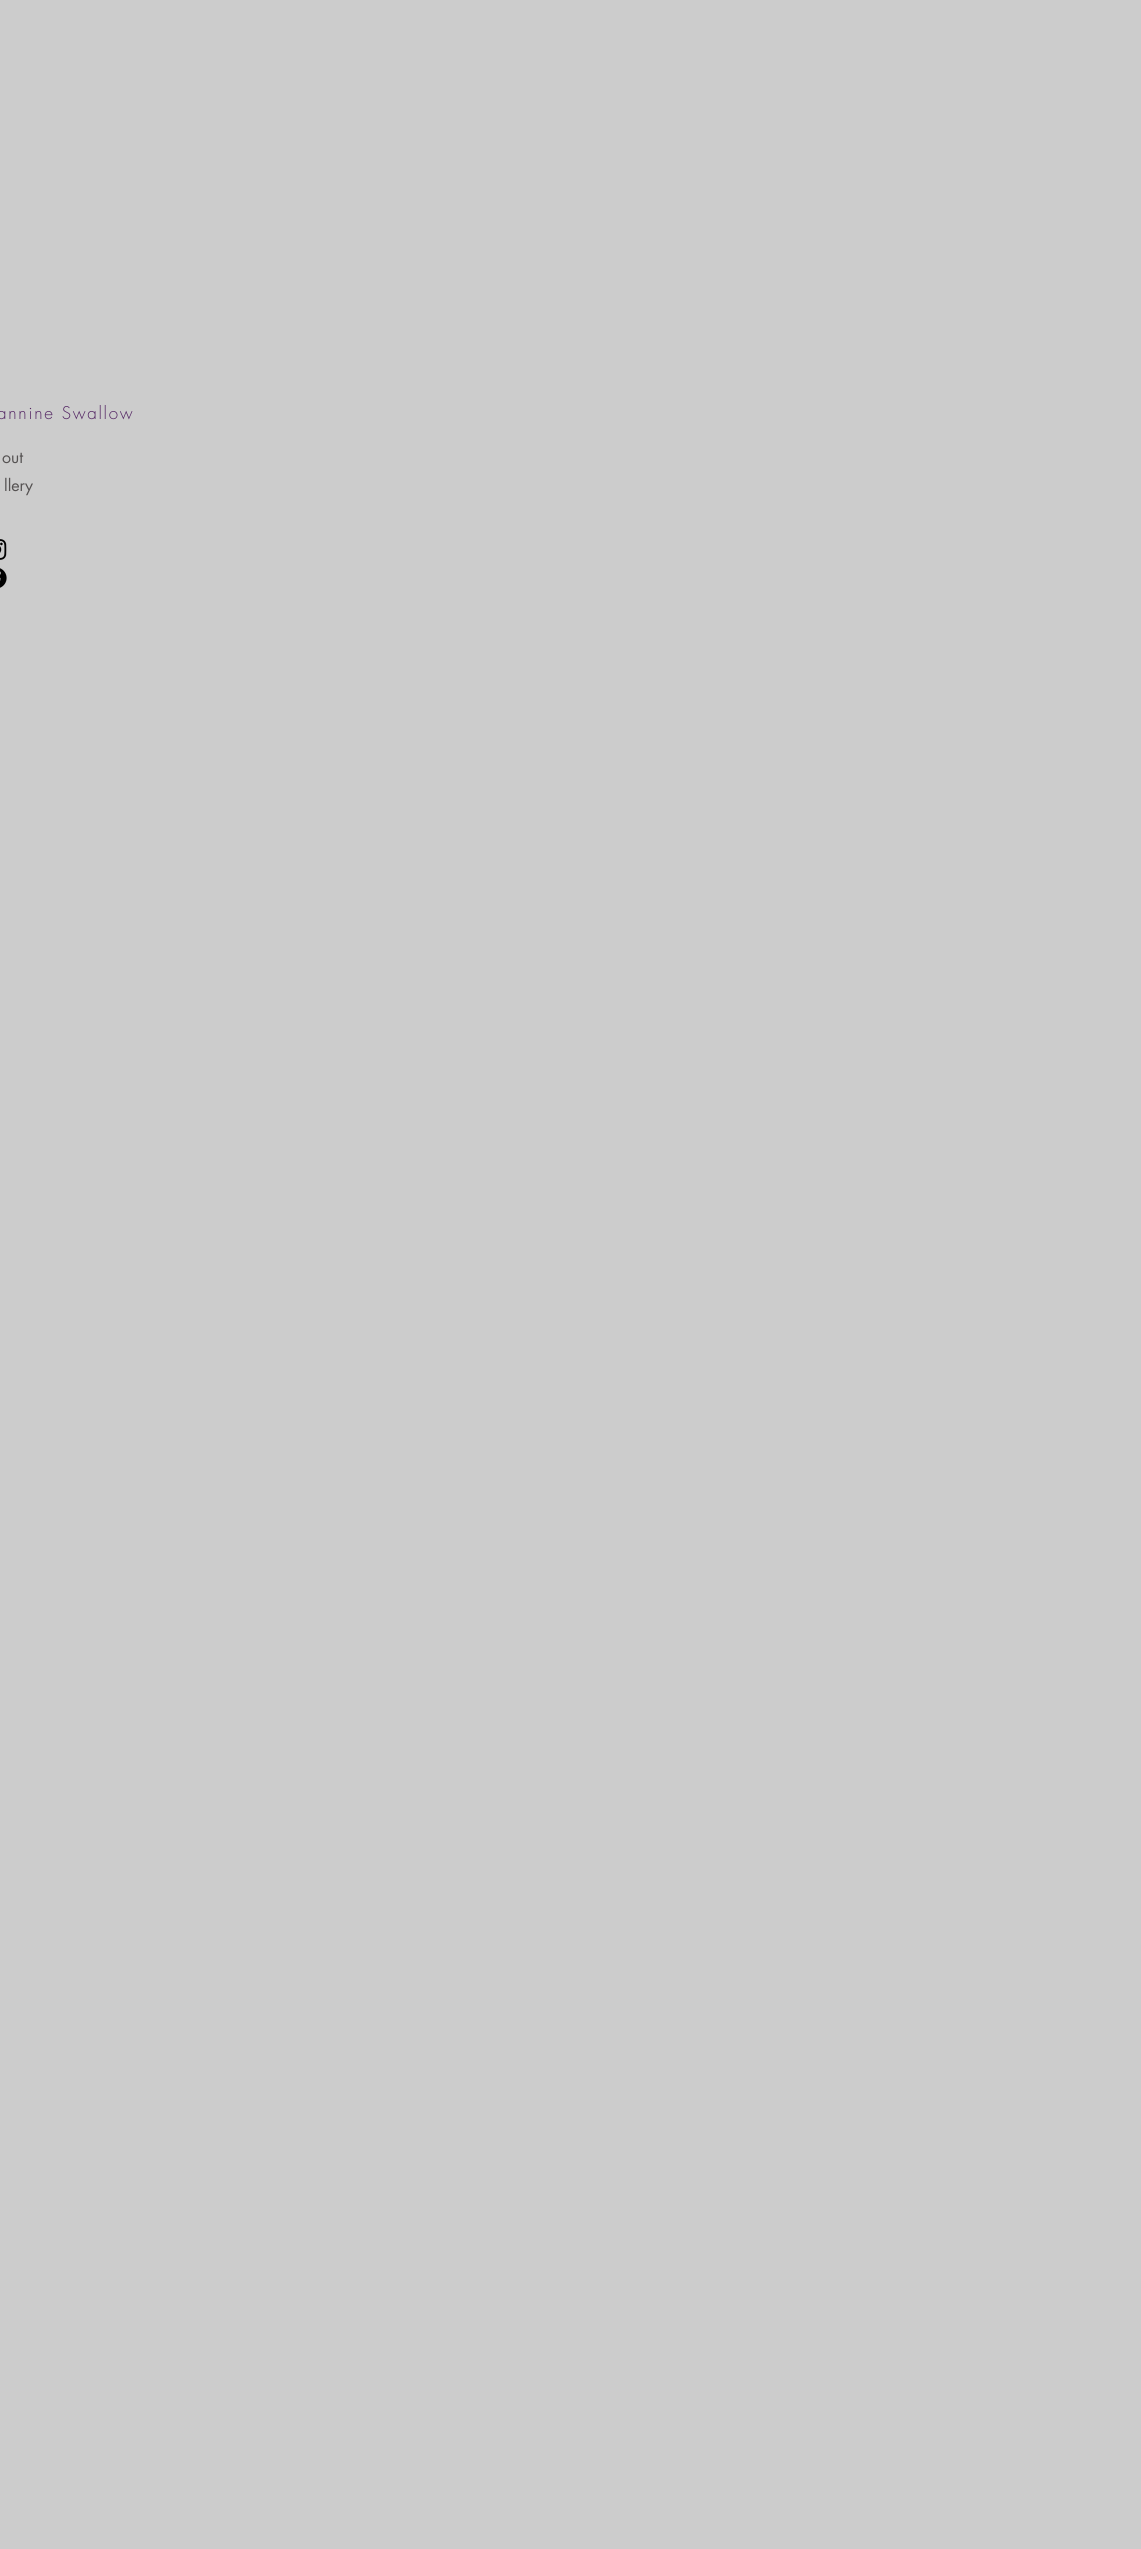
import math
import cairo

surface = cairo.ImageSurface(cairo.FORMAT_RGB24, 1141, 2549)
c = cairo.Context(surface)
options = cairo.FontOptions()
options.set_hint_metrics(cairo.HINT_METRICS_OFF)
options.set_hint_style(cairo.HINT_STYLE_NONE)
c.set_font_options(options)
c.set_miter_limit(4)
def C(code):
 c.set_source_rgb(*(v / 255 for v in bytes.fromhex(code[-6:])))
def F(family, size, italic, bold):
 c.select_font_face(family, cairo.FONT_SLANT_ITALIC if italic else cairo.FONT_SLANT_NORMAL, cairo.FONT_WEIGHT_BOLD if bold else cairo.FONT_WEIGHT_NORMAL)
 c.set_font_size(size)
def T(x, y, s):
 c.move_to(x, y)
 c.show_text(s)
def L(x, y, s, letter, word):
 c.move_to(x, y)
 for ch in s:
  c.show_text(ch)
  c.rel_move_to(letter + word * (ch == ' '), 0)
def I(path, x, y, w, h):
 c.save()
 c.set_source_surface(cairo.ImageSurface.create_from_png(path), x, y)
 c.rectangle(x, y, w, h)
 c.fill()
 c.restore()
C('cccccc')
c.paint()
F('futura Light',17,0,0)
C('532563')
L(-3,419,'annine Swallow',1.75,0)
F('futura',16,0,0)
C('555252')
T(2,463,'out')
T(4,491,'llery')
I('1.png',0,539,7,21)
I('2.png',0,568,7,20)
surface.write_to_png('o.png')
